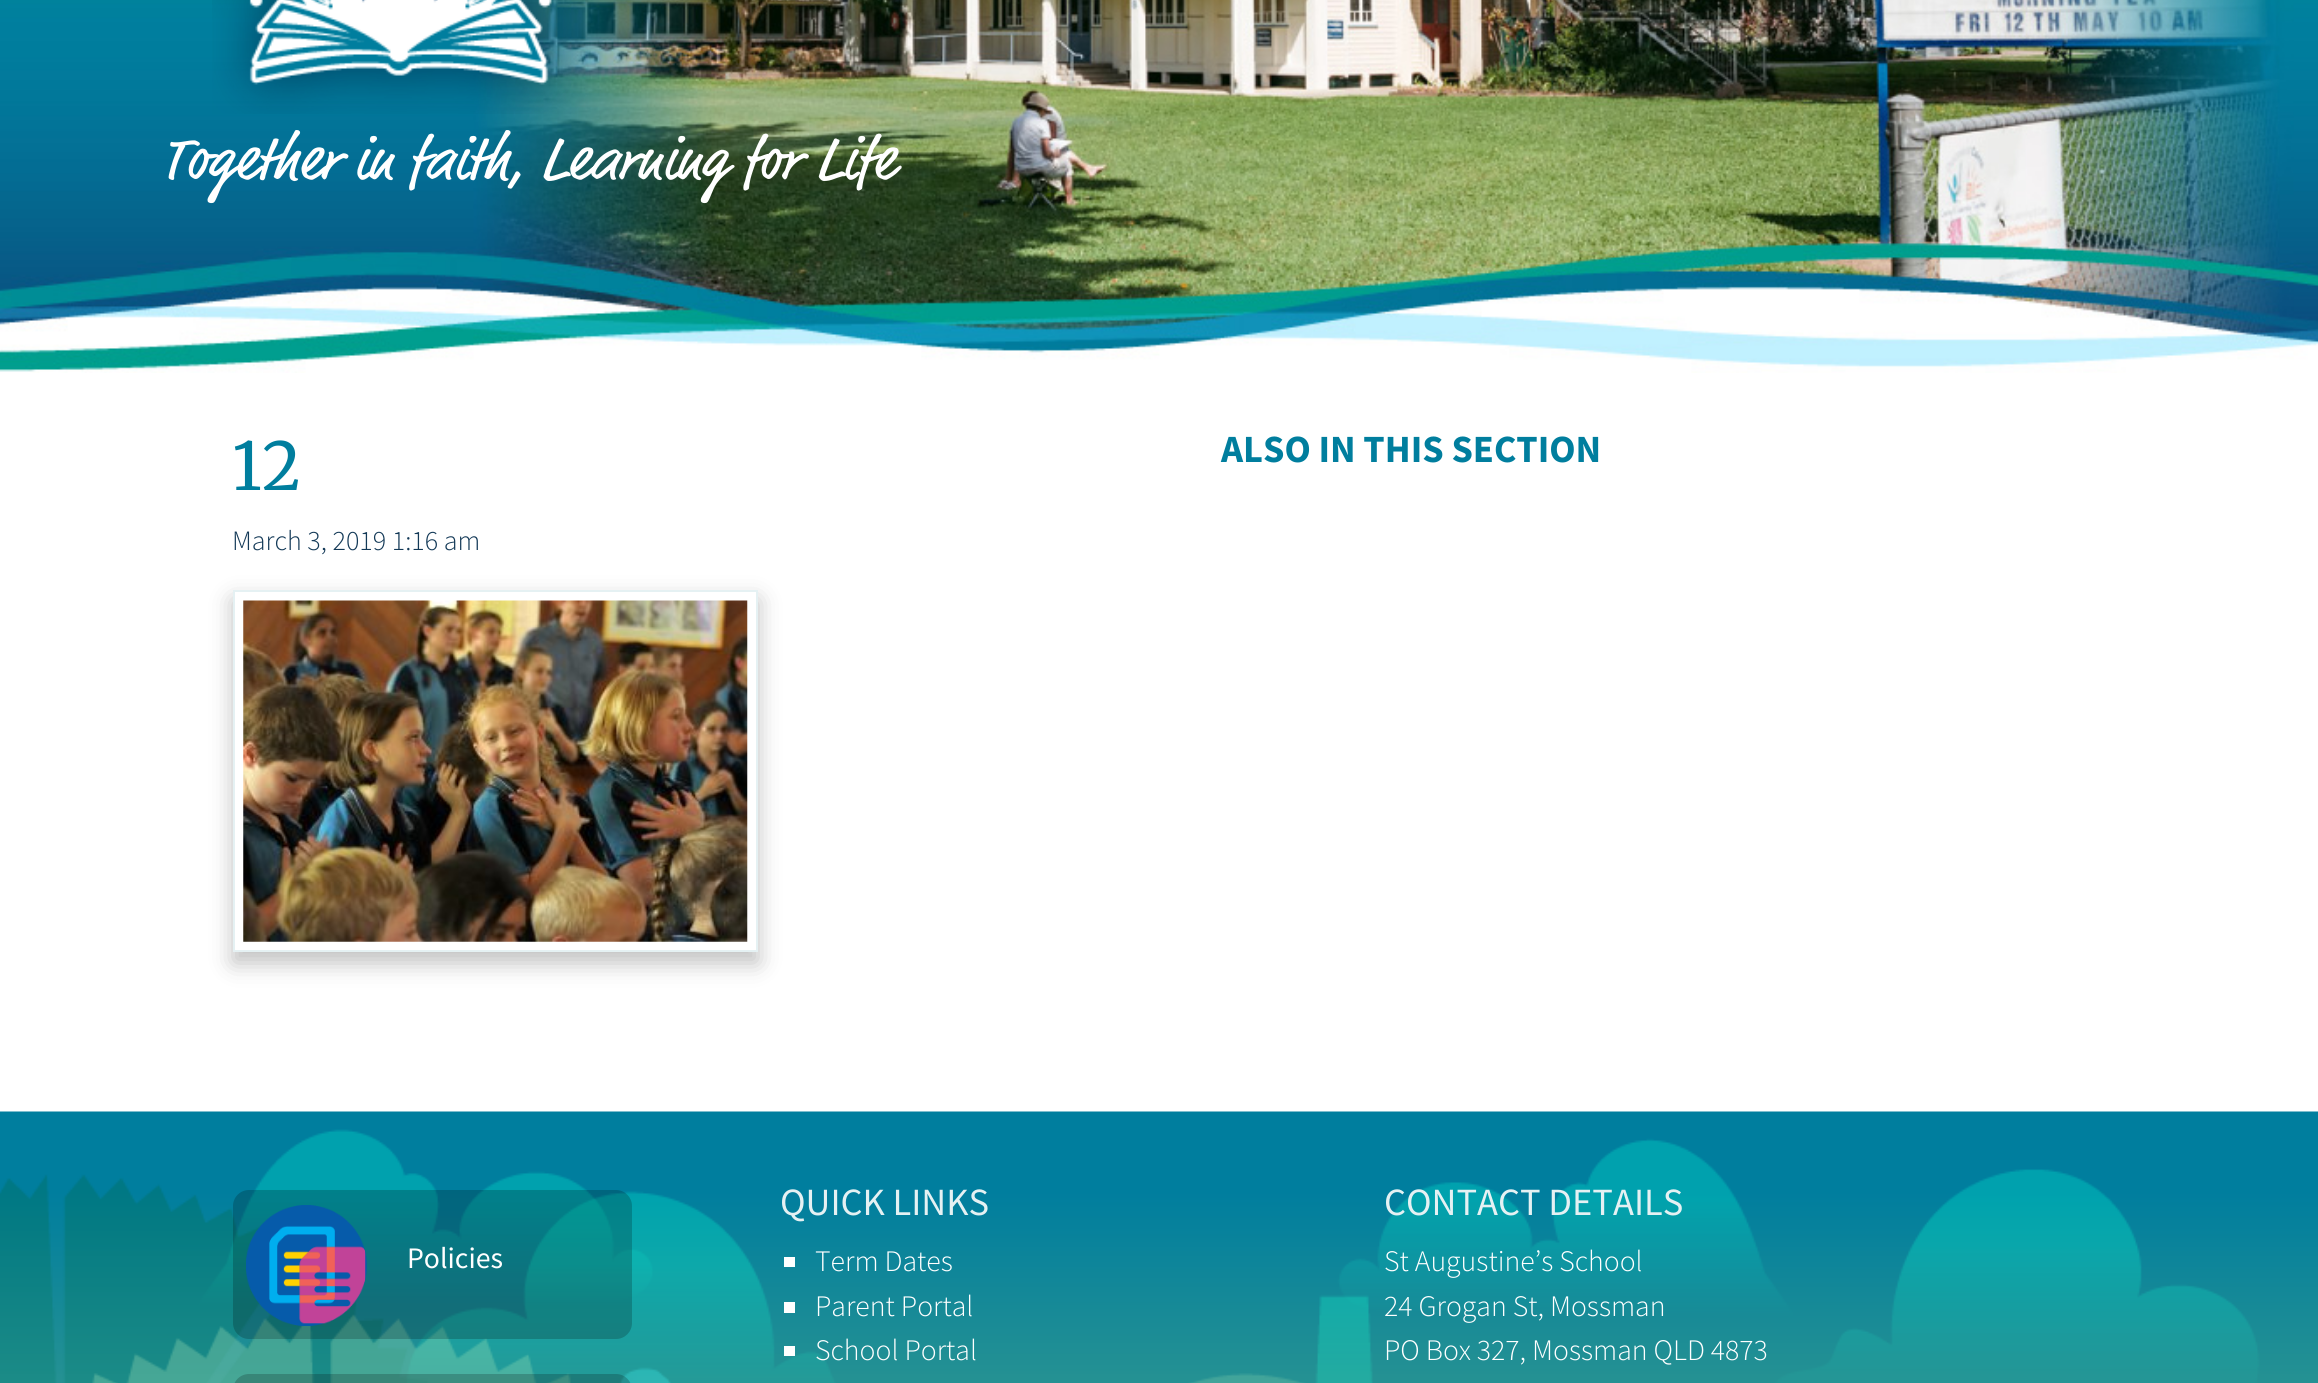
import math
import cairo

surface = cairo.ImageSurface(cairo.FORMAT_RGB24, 2318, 1383)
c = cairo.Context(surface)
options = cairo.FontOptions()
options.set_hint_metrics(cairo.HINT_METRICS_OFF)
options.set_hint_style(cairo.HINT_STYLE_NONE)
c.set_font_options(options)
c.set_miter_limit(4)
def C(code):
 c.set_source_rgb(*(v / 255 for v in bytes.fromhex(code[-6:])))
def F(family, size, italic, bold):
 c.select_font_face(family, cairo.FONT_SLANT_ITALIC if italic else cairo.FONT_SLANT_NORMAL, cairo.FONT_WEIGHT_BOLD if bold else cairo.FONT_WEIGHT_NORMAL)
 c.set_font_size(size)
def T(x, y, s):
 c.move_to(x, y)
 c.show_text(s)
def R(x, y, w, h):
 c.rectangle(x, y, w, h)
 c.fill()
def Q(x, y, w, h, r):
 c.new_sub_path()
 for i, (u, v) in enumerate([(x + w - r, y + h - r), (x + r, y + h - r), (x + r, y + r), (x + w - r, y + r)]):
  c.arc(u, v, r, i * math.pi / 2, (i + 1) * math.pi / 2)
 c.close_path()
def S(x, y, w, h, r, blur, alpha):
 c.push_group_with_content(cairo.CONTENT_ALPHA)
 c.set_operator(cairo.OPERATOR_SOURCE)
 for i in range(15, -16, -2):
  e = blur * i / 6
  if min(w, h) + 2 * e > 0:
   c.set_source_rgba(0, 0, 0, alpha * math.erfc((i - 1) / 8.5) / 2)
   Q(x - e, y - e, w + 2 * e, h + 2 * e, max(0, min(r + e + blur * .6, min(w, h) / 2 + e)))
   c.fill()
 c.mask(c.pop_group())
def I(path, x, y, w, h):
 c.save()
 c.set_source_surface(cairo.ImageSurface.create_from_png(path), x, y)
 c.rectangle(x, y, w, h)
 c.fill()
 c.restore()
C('ffffff')
c.paint()
I('1.png',0,0,2318,373)
I('2.png',212,0,376,114)
F('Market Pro',61.25,0,0)
C('ffffff')
T(162,179,'Together in faith, Learning for Life')
F('Merriweather',66,0,0)
C('007e9e')
T(232,490,'12')
F('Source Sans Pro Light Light',28,0,0)
C('133957')
T(232,550,'March 3, 2019 1:16 am')
C('000000')
S(233,600,525,363,0,11.5,.25)
C('ffffff')
c.rectangle(234,591,523,360)
c.fill_preserve()
C('e5f1f3')
c.stroke()
I('3.png',243,600,505,342)
F('Source Sans Pro',38.5,0,1)
C('007e9e')
T(1221,462,'ALSO IN THIS SECTION')
I('4.png',0,1111,2318,272)
c.set_source_rgba(0,0,0,0.2)
Q(233,1190,399,149,16)
c.fill()
I('5.png',246,1205,121,121)
F('Source Sans Pro',29.75,0,0)
C('ffffff')
T(407,1268,'Policies')
c.set_source_rgba(0,0,0,0.2)
Q(233,1374,399,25,16)
c.fill()
F('Source Sans Pro',38.5,0,0)
C('e5f1f3')
T(780,1215,'QUICK LINKS')
C('ffffff')
R(784,1257,11,10)
F('Source Sans Pro Light Light',29.75,0,0)
T(815,1271,'Term Dates')
R(784,1302,11,11)
T(815,1316,'Parent Portal')
R(784,1346,11,10)
T(815,1360,'School Portal')
F('Source Sans Pro',38.5,0,0)
C('e5f1f3')
T(1384,1215,'CONTACT DETAILS')
F('Source Sans Pro Light Light',29.75,0,0)
C('ffffff')
T(1384,1271,'St Augustine’s School')
T(1384,1316,'24 Grogan St, Mossman')
T(1384,1360,'PO Box 327, Mossman QLD 4873')
surface.write_to_png('o.png')
